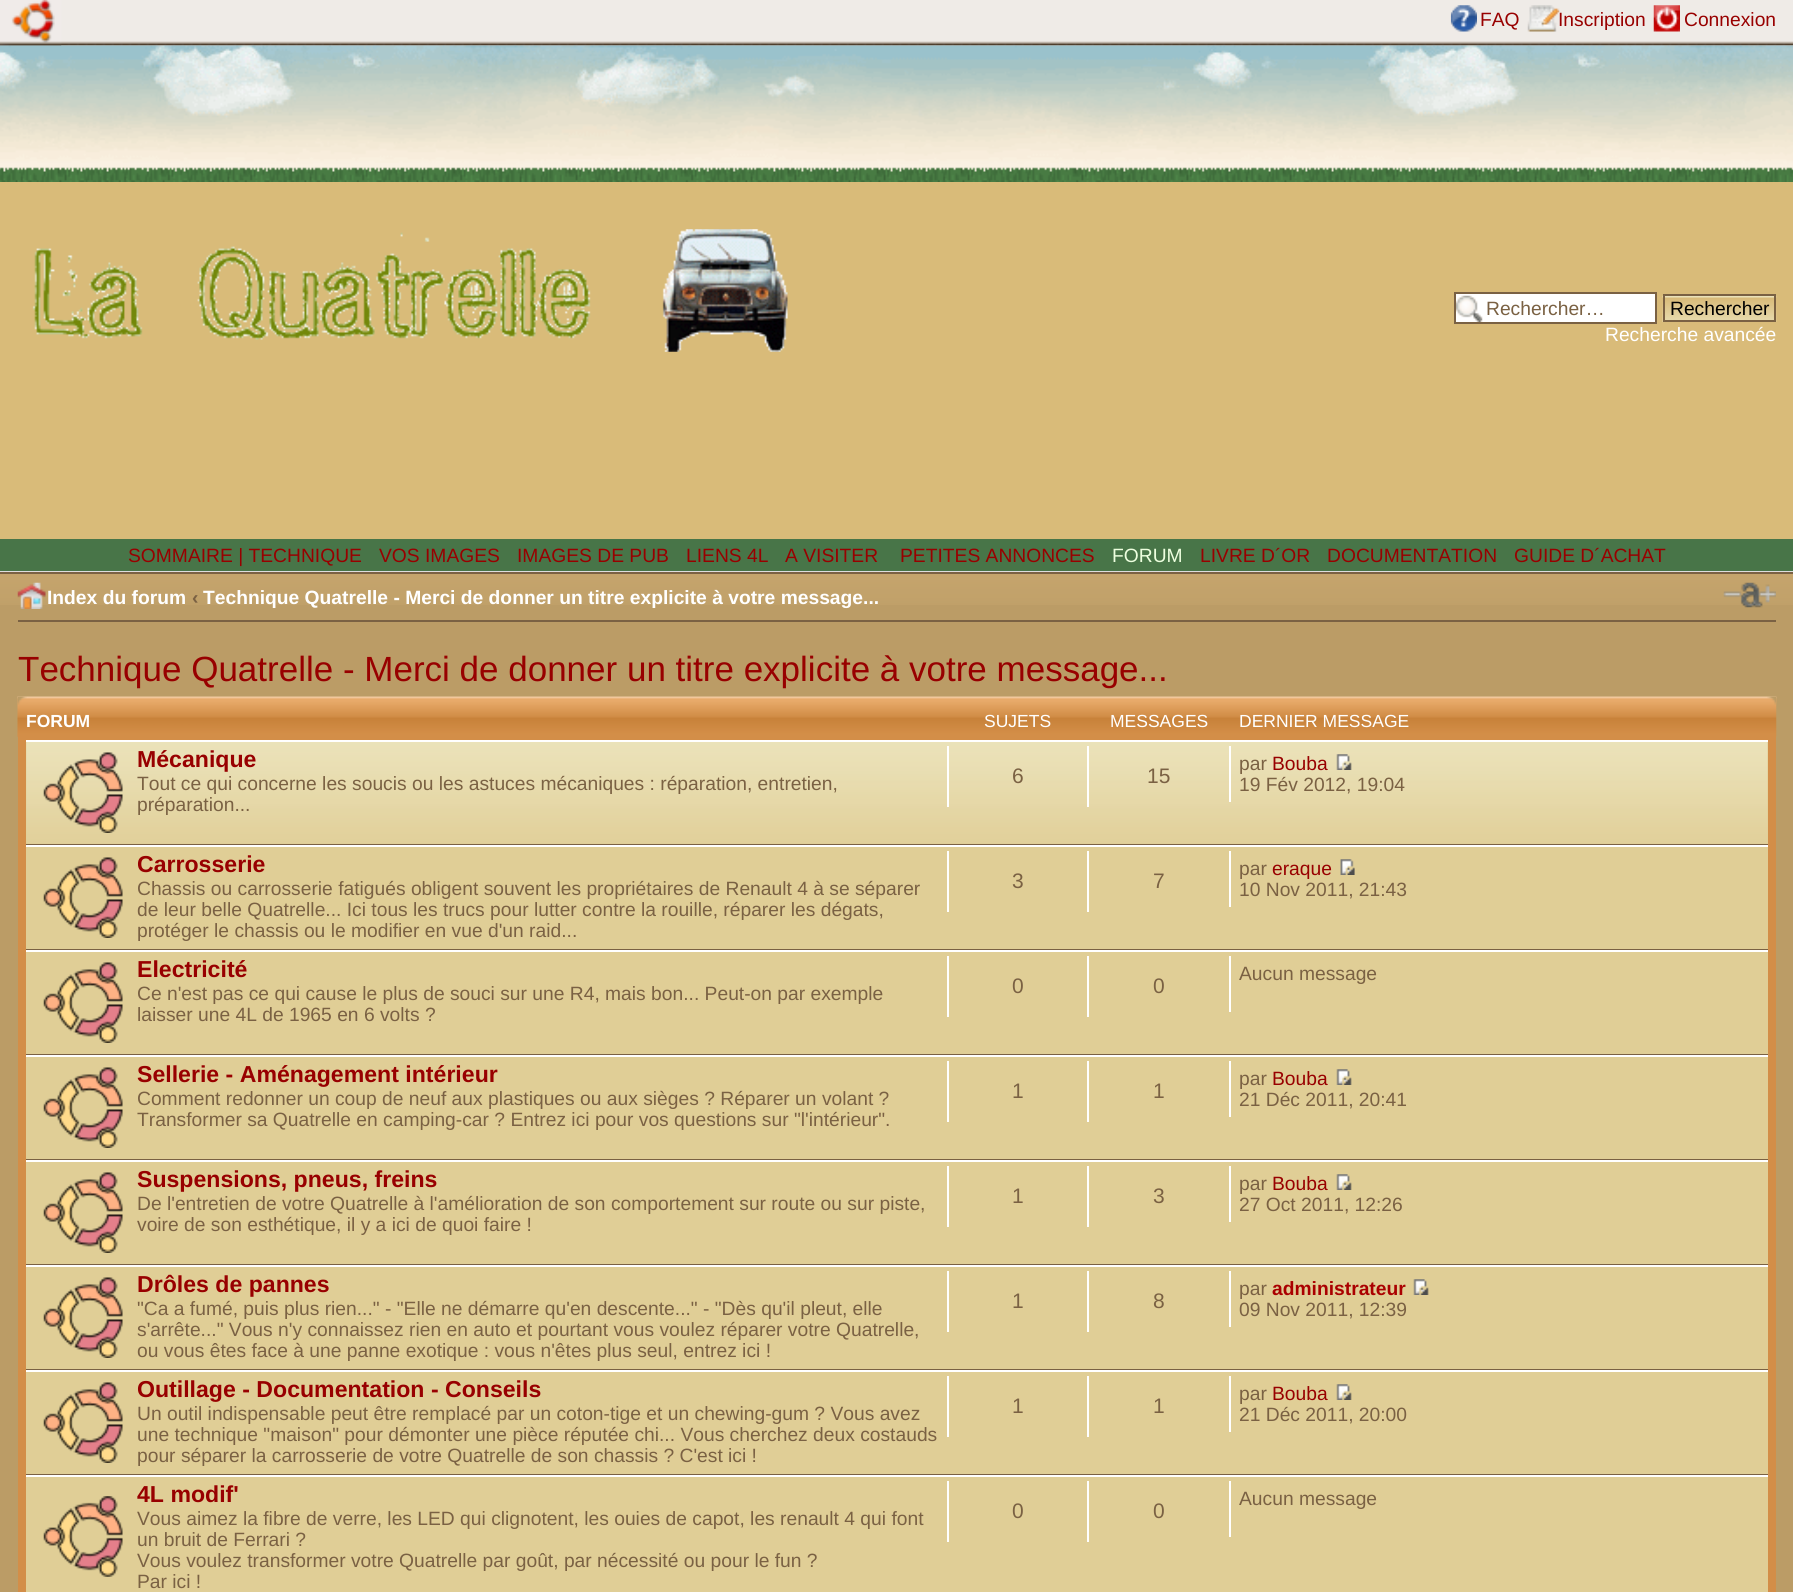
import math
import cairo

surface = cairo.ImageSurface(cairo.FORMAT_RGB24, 1793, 1592)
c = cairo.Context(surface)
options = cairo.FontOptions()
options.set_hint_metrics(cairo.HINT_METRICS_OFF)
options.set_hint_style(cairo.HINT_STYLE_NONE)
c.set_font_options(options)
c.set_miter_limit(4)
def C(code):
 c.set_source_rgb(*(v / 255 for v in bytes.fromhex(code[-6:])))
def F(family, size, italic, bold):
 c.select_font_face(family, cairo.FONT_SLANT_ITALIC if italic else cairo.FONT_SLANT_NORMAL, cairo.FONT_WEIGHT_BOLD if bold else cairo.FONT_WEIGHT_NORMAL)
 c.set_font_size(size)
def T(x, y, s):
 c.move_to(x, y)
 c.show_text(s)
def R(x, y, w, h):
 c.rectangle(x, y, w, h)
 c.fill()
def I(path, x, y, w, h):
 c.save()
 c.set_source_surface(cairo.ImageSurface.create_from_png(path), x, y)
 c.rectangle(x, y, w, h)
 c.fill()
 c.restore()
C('bb9c66')
c.paint()
C('efebe7')
R(0,0,1793,46)
I('1.png',0,41,1793,5)
I('2.png',0,0,62,46)
I('3.png',1450,5,27,27)
F('Liberation Sans',19.25,0,0)
C('980000')
T(1480,26,'FAQ')
I('4.png',1527,5,33,27)
T(1558,26,'Inscription')
I('5.png',1653,5,27,27)
T(1684,26,'Connexion')
C('d9bb79')
R(0,182,1793,357)
I('6.png',0,45,1793,137)
I('7.png',32,232,559,108)
I('8.png',662,229,126,123)
C('ffffff')
R(1456,294,199,28)
I('9.png',1456,295,27,27)
c.rectangle(1455,293,201,30)
C('7a6143')
c.stroke()
T(1486,315,'Rechercher…')
I('10.png',1662,295,115,27)
c.rectangle(1664,295,111,26)
c.stroke()
C('000000')
T(1670,315,'Rechercher')
C('ffffff')
T(1605,341,'Recherche avancée')
C('487548')
R(0,539,1793,32)
C('dddddd')
R(0,571,1793,1)
C('980000')
T(128,562,'SOMMAIRE | TECHNIQUE')
T(379,562,'VOS IMAGES')
T(517,562,'IMAGES DE PUB')
T(686,562,'LIENS 4L')
T(785,562,'A VISITER')
T(900,562,'PETITES ANNONCES')
C('edffdf')
T(1112,562,'FORUM')
C('980000')
T(1200,562,'LIVRE D´OR')
T(1327,562,'DOCUMENTATION')
T(1514,562,'GUIDE D´ACHAT')
I('11.png',0,574,1793,31)
C('7a6143')
R(0,572,1793,2)
R(18,620,1758,2)
I('12.png',17,582,29,27)
F('Liberation Sans',19.25,0,1)
C('ffffff')
T(47,604,'Index du forum')
C('7a6143')
T(192,604,'‹')
C('ffffff')
T(203,604,'Technique Quatrelle - Merci de donner un titre explicite à votre message...')
I('13.png',1723,582,53,26)
F('Liberation Sans',35,0,0)
C('980000')
T(18,681,'Technique Quatrelle - Merci de donner un titre explicite à votre message...')
C('d38e48')
R(18,736,1758,856)
I('14.png',17,696,1760,41)
I('15.png',17,696,10,9)
I('16.png',1767,696,9,9)
F('Liberation Sans',17.5,0,1)
C('ffffff')
T(26,727,'FORUM')
F('Liberation Sans',17.5,0,0)
T(984,727,'SUJETS')
T(1110,727,'MESSAGES')
T(1239,727,'DERNIER MESSAGE')
C('e0ce96')
R(26,742,1742,850)
I('17.png',26,742,1742,101)
C('ffffff')
R(26,740,1742,2)
C('7a6143')
R(26,844,1742,1)
I('18.png',43,752,80,81)
F('Liberation Sans',23.1,0,1)
C('980000')
T(137,767,'Mécanique')
F('Liberation Sans',19.25,0,0)
C('7a6143')
T(137,790,'Tout ce qui concerne les soucis ou les astuces mécaniques : réparation, entretien,')
T(137,811,'préparation...')
C('ffffff')
R(947,746,2,61)
F('Liberation Sans',21,0,0)
C('7a6143')
T(1012,783,'6')
C('ffffff')
R(1087,746,2,61)
C('7a6143')
T(1147,783,'15')
C('ffffff')
R(1229,746,2,56)
F('Liberation Sans',19.25,0,0)
C('7a6143')
T(1239,770,'par')
C('980000')
T(1272,770,'Bouba')
I('19.png',1336,754,16,16)
C('7a6143')
T(1239,791,'19 Fév 2012, 19:04')
C('ffffff')
R(26,845,1742,2)
C('7a6143')
R(26,949,1742,1)
I('20.png',43,857,80,81)
F('Liberation Sans',23.1,0,1)
C('980000')
T(137,872,'Carrosserie')
F('Liberation Sans',19.25,0,0)
C('7a6143')
T(137,895,'Chassis ou carrosserie fatigués obligent souvent les propriétaires de Renault 4 à se séparer')
T(137,916,'de leur belle Quatrelle... Ici tous les trucs pour lutter contre la rouille, réparer les dégats,')
T(137,937,'protéger le chassis ou le modifier en vue d\'un raid...')
C('ffffff')
R(947,851,2,61)
F('Liberation Sans',21,0,0)
C('7a6143')
T(1012,888,'3')
C('ffffff')
R(1087,851,2,61)
C('7a6143')
T(1153,888,'7')
C('ffffff')
R(1229,851,2,56)
F('Liberation Sans',19.25,0,0)
C('7a6143')
T(1239,875,'par')
C('980000')
T(1272,875,'eraque')
I('21.png',1340,859,15,16)
C('7a6143')
T(1239,896,'10 Nov 2011, 21:43')
C('ffffff')
R(26,950,1742,2)
C('7a6143')
R(26,1054,1742,1)
I('20.png',43,962,80,81)
F('Liberation Sans',23.1,0,1)
C('980000')
T(137,977,'Electricité')
F('Liberation Sans',19.25,0,0)
C('7a6143')
T(137,1000,'Ce n\'est pas ce qui cause le plus de souci sur une R4, mais bon... Peut-on par exemple')
T(137,1021,'laisser une 4L de 1965 en 6 volts ?')
C('ffffff')
R(1229,956,2,56)
C('7a6143')
T(1239,980,'Aucun message')
C('ffffff')
R(947,956,2,61)
F('Liberation Sans',21,0,0)
C('7a6143')
T(1012,993,'0')
C('ffffff')
R(1087,956,2,61)
C('7a6143')
T(1153,993,'0')
C('ffffff')
R(26,1055,1742,2)
C('7a6143')
R(26,1159,1742,1)
I('20.png',43,1067,80,81)
F('Liberation Sans',23.1,0,1)
C('980000')
T(137,1082,'Sellerie - Aménagement intérieur')
F('Liberation Sans',19.25,0,0)
C('7a6143')
T(137,1105,'Comment redonner un coup de neuf aux plastiques ou aux sièges ? Réparer un volant ?')
T(137,1126,'Transformer sa Quatrelle en camping-car ? Entrez ici pour vos questions sur "l\'intérieur".')
C('ffffff')
R(947,1061,2,61)
F('Liberation Sans',21,0,0)
C('7a6143')
T(1012,1098,'1')
C('ffffff')
R(1087,1061,2,61)
C('7a6143')
T(1153,1098,'1')
C('ffffff')
R(1229,1061,2,56)
F('Liberation Sans',19.25,0,0)
C('7a6143')
T(1239,1085,'par')
C('980000')
T(1272,1085,'Bouba')
I('22.png',1336,1069,16,16)
C('7a6143')
T(1239,1106,'21 Déc 2011, 20:41')
C('ffffff')
R(26,1160,1742,2)
C('7a6143')
R(26,1264,1742,1)
I('20.png',43,1172,80,81)
F('Liberation Sans',23.1,0,1)
C('980000')
T(137,1187,'Suspensions, pneus, freins')
F('Liberation Sans',19.25,0,0)
C('7a6143')
T(137,1210,'De l\'entretien de votre Quatrelle à l\'amélioration de son comportement sur route ou sur piste,')
T(137,1231,'voire de son esthétique, il y a ici de quoi faire !')
C('ffffff')
R(947,1166,2,61)
F('Liberation Sans',21,0,0)
C('7a6143')
T(1012,1203,'1')
C('ffffff')
R(1087,1166,2,61)
C('7a6143')
T(1153,1203,'3')
C('ffffff')
R(1229,1166,2,56)
F('Liberation Sans',19.25,0,0)
C('7a6143')
T(1239,1190,'par')
C('980000')
T(1272,1190,'Bouba')
I('22.png',1336,1174,16,16)
C('7a6143')
T(1239,1211,'27 Oct 2011, 12:26')
C('ffffff')
R(26,1265,1742,2)
C('7a6143')
R(26,1369,1742,1)
I('20.png',43,1277,80,81)
F('Liberation Sans',23.1,0,1)
C('980000')
T(137,1292,'Drôles de pannes')
F('Liberation Sans',19.25,0,0)
C('7a6143')
T(137,1315,'"Ca a fumé, puis plus rien..." - "Elle ne démarre qu\'en descente..." - "Dès qu\'il pleut, elle')
T(137,1336,'s\'arrête..." Vous n\'y connaissez rien en auto et pourtant vous voulez réparer votre Quatrelle,')
T(137,1357,'ou vous êtes face à une panne exotique : vous n\'êtes plus seul, entrez ici !')
C('ffffff')
R(947,1271,2,61)
F('Liberation Sans',21,0,0)
C('7a6143')
T(1012,1308,'1')
C('ffffff')
R(1087,1271,2,61)
C('7a6143')
T(1153,1308,'8')
C('ffffff')
R(1229,1271,2,56)
F('Liberation Sans',19.25,0,0)
C('7a6143')
T(1239,1295,'par')
F('Liberation Sans',19.25,0,1)
C('aa0000')
T(1272,1295,'administrateur')
I('22.png',1413,1279,16,16)
F('Liberation Sans',19.25,0,0)
C('7a6143')
T(1239,1316,'09 Nov 2011, 12:39')
C('ffffff')
R(26,1370,1742,2)
C('7a6143')
R(26,1474,1742,1)
I('20.png',43,1382,80,81)
F('Liberation Sans',23.1,0,1)
C('980000')
T(137,1397,'Outillage - Documentation - Conseils')
F('Liberation Sans',19.25,0,0)
C('7a6143')
T(137,1420,'Un outil indispensable peut être remplacé par un coton-tige et un chewing-gum ? Vous avez')
T(137,1441,'une technique "maison" pour démonter une pièce réputée chi... Vous cherchez deux costauds')
T(137,1462,'pour séparer la carrosserie de votre Quatrelle de son chassis ? C\'est ici !')
C('ffffff')
R(947,1376,2,61)
F('Liberation Sans',21,0,0)
C('7a6143')
T(1012,1413,'1')
C('ffffff')
R(1087,1376,2,61)
C('7a6143')
T(1153,1413,'1')
C('ffffff')
R(1229,1376,2,56)
F('Liberation Sans',19.25,0,0)
C('7a6143')
T(1239,1400,'par')
C('980000')
T(1272,1400,'Bouba')
I('22.png',1336,1384,16,16)
C('7a6143')
T(1239,1421,'21 Déc 2011, 20:00')
C('ffffff')
R(26,1475,1742,2)
I('23.png',43,1496,80,81)
F('Liberation Sans',23.1,0,1)
C('980000')
T(137,1502,'4L modif\'')
F('Liberation Sans',19.25,0,0)
C('7a6143')
T(137,1525,'Vous aimez la fibre de verre, les LED qui clignotent, les ouies de capot, les renault 4 qui font')
T(137,1546,'un bruit de Ferrari ?')
T(137,1567,'Vous voulez transformer votre Quatrelle par goût, par nécessité ou pour le fun ?')
T(137,1588,'Par ici !')
C('ffffff')
R(1229,1481,2,56)
C('7a6143')
T(1239,1505,'Aucun message')
C('ffffff')
R(947,1481,2,61)
F('Liberation Sans',21,0,0)
C('7a6143')
T(1012,1518,'0')
C('ffffff')
R(1087,1481,2,61)
C('7a6143')
T(1153,1518,'0')
surface.write_to_png('o.png')
